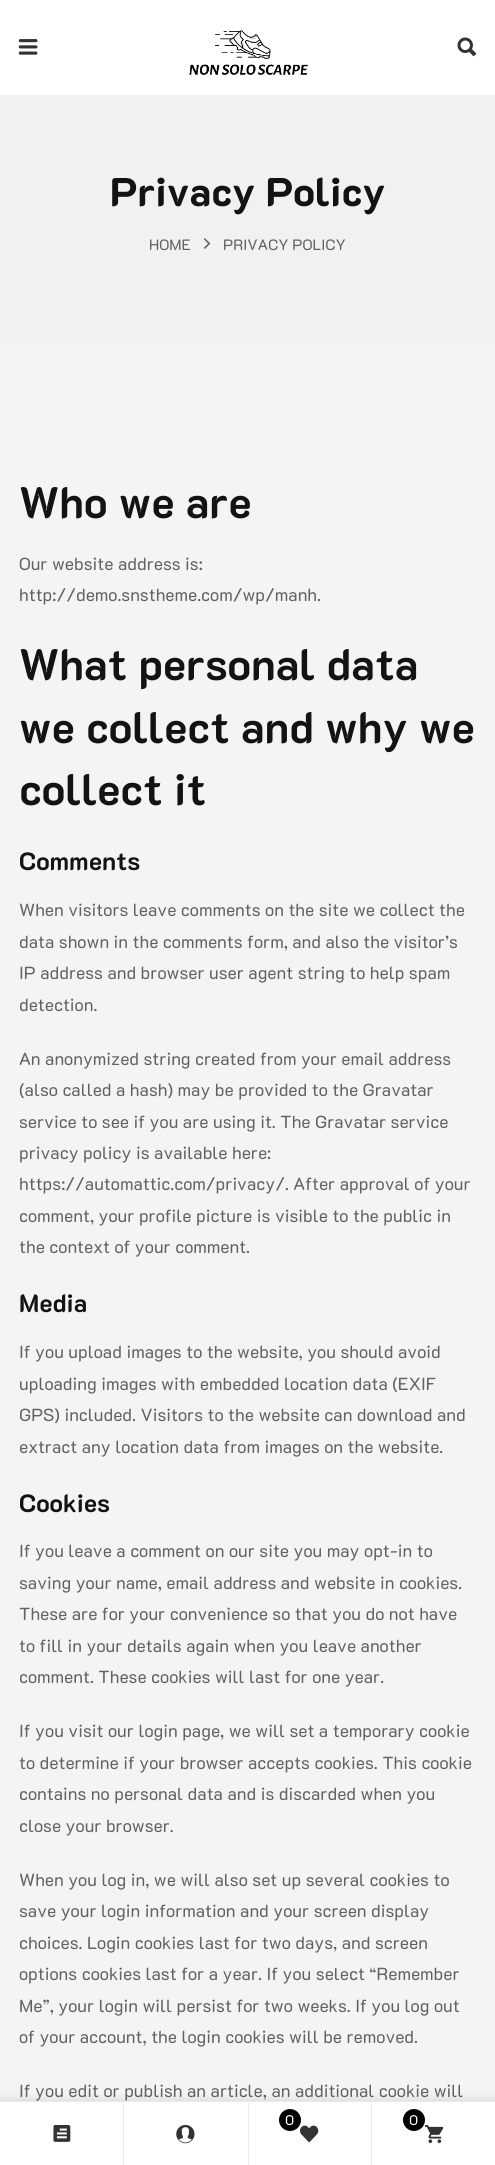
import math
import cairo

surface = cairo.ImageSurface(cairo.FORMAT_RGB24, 495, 2165)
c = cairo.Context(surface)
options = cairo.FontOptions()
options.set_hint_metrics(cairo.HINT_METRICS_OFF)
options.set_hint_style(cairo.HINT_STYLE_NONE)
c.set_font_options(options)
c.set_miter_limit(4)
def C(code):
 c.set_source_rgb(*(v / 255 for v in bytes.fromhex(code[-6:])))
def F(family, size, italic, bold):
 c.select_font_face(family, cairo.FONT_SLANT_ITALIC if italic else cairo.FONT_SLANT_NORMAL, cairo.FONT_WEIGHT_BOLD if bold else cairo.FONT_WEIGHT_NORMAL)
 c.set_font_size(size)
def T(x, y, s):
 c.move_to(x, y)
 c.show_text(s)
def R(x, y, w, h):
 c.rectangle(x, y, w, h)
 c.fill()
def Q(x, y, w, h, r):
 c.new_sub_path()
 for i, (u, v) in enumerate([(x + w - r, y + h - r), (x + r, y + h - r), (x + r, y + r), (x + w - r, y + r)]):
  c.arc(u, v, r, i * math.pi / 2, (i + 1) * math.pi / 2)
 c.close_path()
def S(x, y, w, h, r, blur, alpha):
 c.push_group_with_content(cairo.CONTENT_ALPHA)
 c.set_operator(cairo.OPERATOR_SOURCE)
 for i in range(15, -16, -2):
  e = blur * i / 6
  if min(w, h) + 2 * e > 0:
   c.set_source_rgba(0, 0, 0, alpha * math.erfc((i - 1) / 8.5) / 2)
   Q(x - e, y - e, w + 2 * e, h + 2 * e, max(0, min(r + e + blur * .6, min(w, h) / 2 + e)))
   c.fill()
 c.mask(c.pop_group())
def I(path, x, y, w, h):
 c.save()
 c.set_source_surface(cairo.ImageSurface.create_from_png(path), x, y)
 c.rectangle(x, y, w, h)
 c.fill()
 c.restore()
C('f4f4f4')
c.paint()
C('f1f1f1')
R(0,95,495,250)
F('K2D ExtraBold',40,0,0)
C('131313')
T(110,206,'Privacy Policy')
F('K2D',15,0,0)
C('626262')
T(149,250,'HOME')
I('1.png',203,238,8,11)
T(223,250,'PRIVACY POLICY')
F('K2D',43.75,0,1)
C('131313')
T(19,518,'Who we are')
F('K2D',17.5,0,0)
C('626262')
T(19,570,'Our website address is:')
T(19,601,'http://demo.snstheme.com/wp/manh.')
F('K2D',43.75,0,1)
C('131313')
T(19,680,'What personal data')
T(19,743,'we collect and why we')
T(19,805,'collect it')
F('K2D',25,0,1)
T(19,870,'Comments')
F('K2D',17.5,0,0)
C('626262')
T(19,916,'When visitors leave comments on the site we collect the')
T(19,948,'data shown in the comments form, and also the visitor’s')
T(19,979,'IP address and browser user agent string to help spam')
T(19,1011,'detection.')
T(19,1065,'An anonymized string created from your email address')
T(19,1096,'(also called a hash) may be provided to the Gravatar')
T(19,1128,'service to see if you are using it. The Gravatar service')
T(19,1159,'privacy policy is available here:')
T(19,1190,'https://automattic.com/privacy/. After approval of your')
T(19,1222,'comment, your profile picture is visible to the public in')
T(19,1253,'the context of your comment.')
F('K2D',25,0,1)
C('131313')
T(19,1312,'Media')
F('K2D',17.5,0,0)
C('626262')
T(19,1358,'If you upload images to the website, you should avoid')
T(19,1390,'uploading images with embedded location data (EXIF')
T(19,1421,'GPS) included. Visitors to the website can download and')
T(19,1453,'extract any location data from images on the website.')
F('K2D',25,0,1)
C('131313')
T(19,1512,'Cookies')
F('K2D',17.5,0,0)
C('626262')
T(19,1557,'If you leave a comment on our site you may opt-in to')
T(19,1589,'saving your name, email address and website in cookies.')
T(19,1620,'These are for your convenience so that you do not have')
T(19,1652,'to fill in your details again when you leave another')
T(19,1683,'comment. These cookies will last for one year.')
T(19,1737,'If you visit our login page, we will set a temporary cookie')
T(19,1769,'to determine if your browser accepts cookies. This cookie')
T(19,1800,'contains no personal data and is discarded when you')
T(19,1832,'close your browser.')
T(19,1886,'When you log in, we will also set up several cookies to')
T(19,1917,'save your login information and your screen display')
T(19,1949,'choices. Login cookies last for two days, and screen')
T(19,1980,'options cookies last for a year. If you select “Remember')
T(19,2012,'Me”, your login will persist for two weeks. If you log out')
T(19,2043,'of your account, the login cookies will be removed.')
T(19,2097,'If you edit or publish an article, an additional cookie will')
C('ffffff')
R(0,0,495,95)
I('2.png',18,39,20,16)
I('3.png',189,30,119,45)
I('4.png',457,37,20,20)
C('000000')
S(0,2101,495,64,0,5,.15)
C('ffffff')
R(0,2102,495,63)
C('ebebeb')
R(0,2101,495,1)
R(123,2103,1,62)
I('5.png',53,2125,18,17)
R(248,2103,1,62)
I('6.png',176,2124,19,20)
R(371,2103,1,62)
I('7.png',300,2125,19,18)
C('000000')
c.arc(290,2120,11,0,2 * math.pi)
c.fill()
F('K2D',14,0,0)
C('ffffff')
T(285,2125,'0')
C('000000')
c.new_path()
c.arc(414,2120,11,0,2 * math.pi)
c.fill()
C('ffffff')
T(409,2125,'0')
I('8.png',425,2125,19,19)
surface.write_to_png('o.png')
